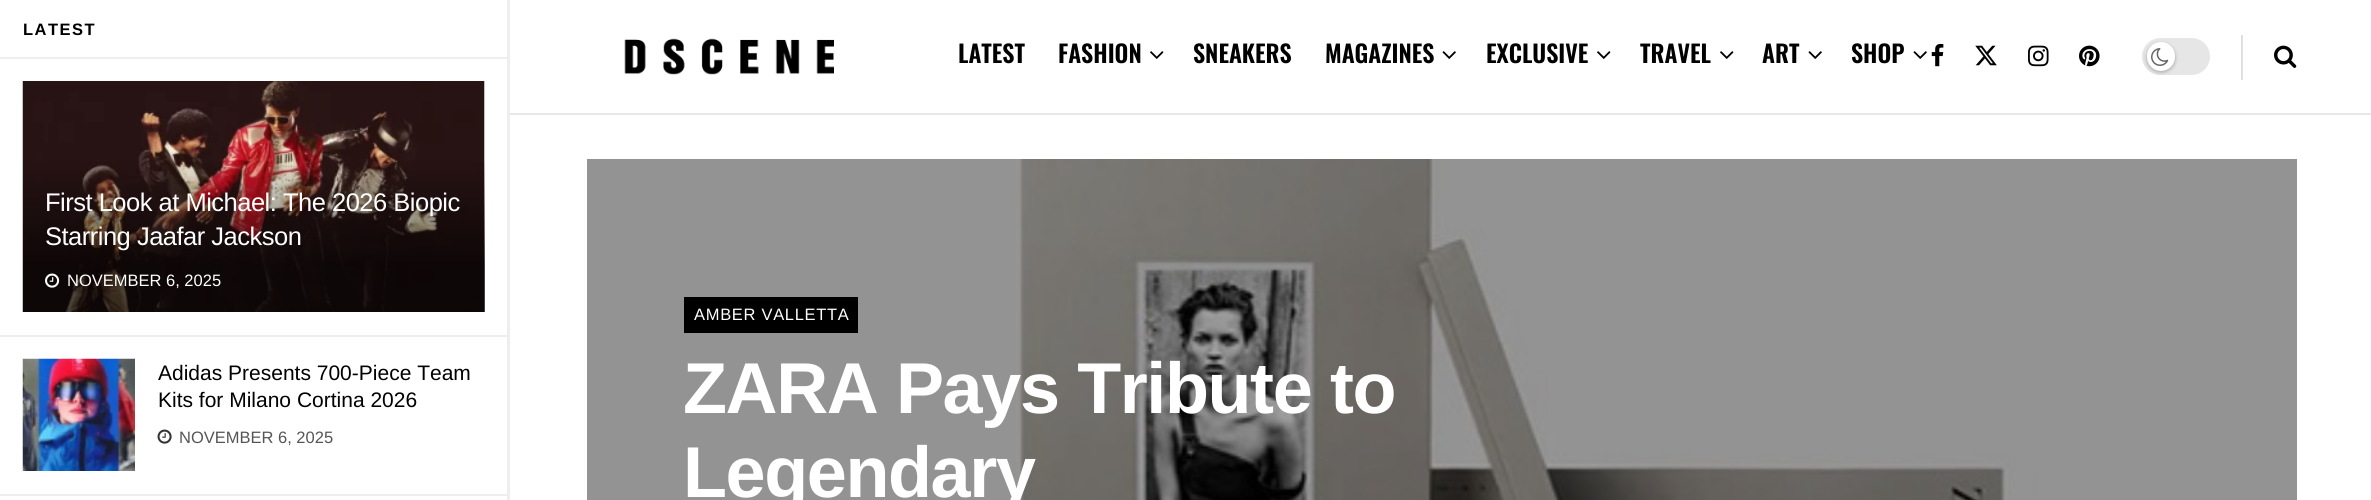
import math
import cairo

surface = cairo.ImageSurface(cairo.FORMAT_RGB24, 2371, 500)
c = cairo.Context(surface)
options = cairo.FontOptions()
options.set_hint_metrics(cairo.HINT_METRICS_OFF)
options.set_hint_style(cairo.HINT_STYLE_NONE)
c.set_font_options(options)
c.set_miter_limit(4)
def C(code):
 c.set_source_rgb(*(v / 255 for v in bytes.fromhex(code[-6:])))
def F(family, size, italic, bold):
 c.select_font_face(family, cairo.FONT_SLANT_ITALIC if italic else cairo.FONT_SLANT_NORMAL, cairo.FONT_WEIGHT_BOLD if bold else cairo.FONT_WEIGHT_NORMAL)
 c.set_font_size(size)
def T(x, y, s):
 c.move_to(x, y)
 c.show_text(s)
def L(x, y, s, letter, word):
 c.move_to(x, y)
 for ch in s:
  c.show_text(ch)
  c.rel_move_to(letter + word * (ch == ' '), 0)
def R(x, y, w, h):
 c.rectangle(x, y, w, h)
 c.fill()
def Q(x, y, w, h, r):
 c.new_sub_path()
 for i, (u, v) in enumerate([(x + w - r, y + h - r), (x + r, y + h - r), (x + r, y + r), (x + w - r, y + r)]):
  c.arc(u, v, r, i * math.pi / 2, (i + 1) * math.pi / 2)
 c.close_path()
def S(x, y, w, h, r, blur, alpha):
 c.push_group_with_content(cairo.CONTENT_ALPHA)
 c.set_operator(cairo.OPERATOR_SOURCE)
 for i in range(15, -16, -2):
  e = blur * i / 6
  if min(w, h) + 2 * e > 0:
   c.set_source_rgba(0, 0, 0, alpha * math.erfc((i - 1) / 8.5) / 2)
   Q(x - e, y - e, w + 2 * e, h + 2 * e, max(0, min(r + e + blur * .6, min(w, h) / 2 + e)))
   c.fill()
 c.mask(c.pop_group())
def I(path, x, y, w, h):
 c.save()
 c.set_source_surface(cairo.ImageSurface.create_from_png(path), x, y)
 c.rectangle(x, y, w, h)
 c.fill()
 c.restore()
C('ffffff')
c.paint()
C('eeeeee')
R(507,0,3,500)
R(0,57,507,2)
F('Liberation Sans',16.5,0,1)
C('000000')
L(23,35,'LATEST',1.5,0)
C('eeeeee')
R(0,335,507,2)
C('f7f7f7')
R(484,81,1,231)
I('1.png',22,81,463,231)
gradient = cairo.LinearGradient(254,157,254,312)
gradient.add_color_stop_rgba(0,0,0,0,0)
gradient.add_color_stop_rgba(.7,0,0,0,.65)
c.set_source(gradient)
R(23,161,462,151)
F('Liberation Sans',25.5,0,0)
C('ffffff')
L(45,211,'First Look at Michael: The 2026 Biopic',-.5,0)
L(45,245,'Starring Jaafar Jackson',-.5,0)
I('2.png',45,273,15,15)
F('Liberation Sans',16.5,0,0)
T(67,286,'NOVEMBER 6, 2025')
C('eeeeee')
R(0,494,507,2)
I('3.png',22,358,113,113)
F('Liberation Sans',21,0,0)
C('000000')
T(158,380,'Adidas Presents 700-Piece Team')
T(158,407,'Kits for Milano Cortina 2026')
I('4.png',157,429,15,15)
F('Liberation Sans',16.5,0,0)
C('555555')
T(179,443,'NOVEMBER 6, 2025')
C('e8e8e8')
R(510,113,1861,2)
I('5.png',624,38,210,37)
F('Oswald SemiBold',24,0,0)
C('000000')
T(958,63,'LATEST')
T(1058,63,'FASHION')
I('6.png',1150,51,14,8)
T(1193,63,'SNEAKERS')
T(1325,63,'MAGAZINES')
I('7.png',1442,51,14,8)
T(1486,63,'EXCLUSIVE')
I('6.png',1597,51,14,8)
T(1640,63,'TRAVEL')
I('6.png',1720,51,14,8)
T(1762,63,'ART')
I('7.png',1808,51,14,8)
T(1851,63,'SHOP')
I('7.png',1913,51,14,8)
I('8.png',1931,43,13,24)
I('9.png',1975,45,22,21)
I('10.png',2028,45,21,22)
I('11.png',2079,45,21,22)
C('e6e6e6')
Q(2142,38,68,37,18.5)
c.fill()
C('000000')
S(2147,44,28,28,14,2,.3)
C('ffffff')
Q(2147,42,28,29,14)
c.fill()
I('12.png',2151,48,18,18)
C('e0e0e0')
R(2241,35,2,45)
I('13.png',2274,45,23,23)
I('14.png',587,159,1710,341)
C('000000')
R(684,297,174,36)
F('Liberation Sans',16.5,0,0)
C('ffffff')
L(694,320,'AMBER VALLETTA',.7,0)
F('Liberation Sans',72,0,1)
L(683,413,'ZARA Pays Tribute to',-1.4,0)
L(683,497,'Legendary',-1.4,0)
surface.write_to_png('o.png')
